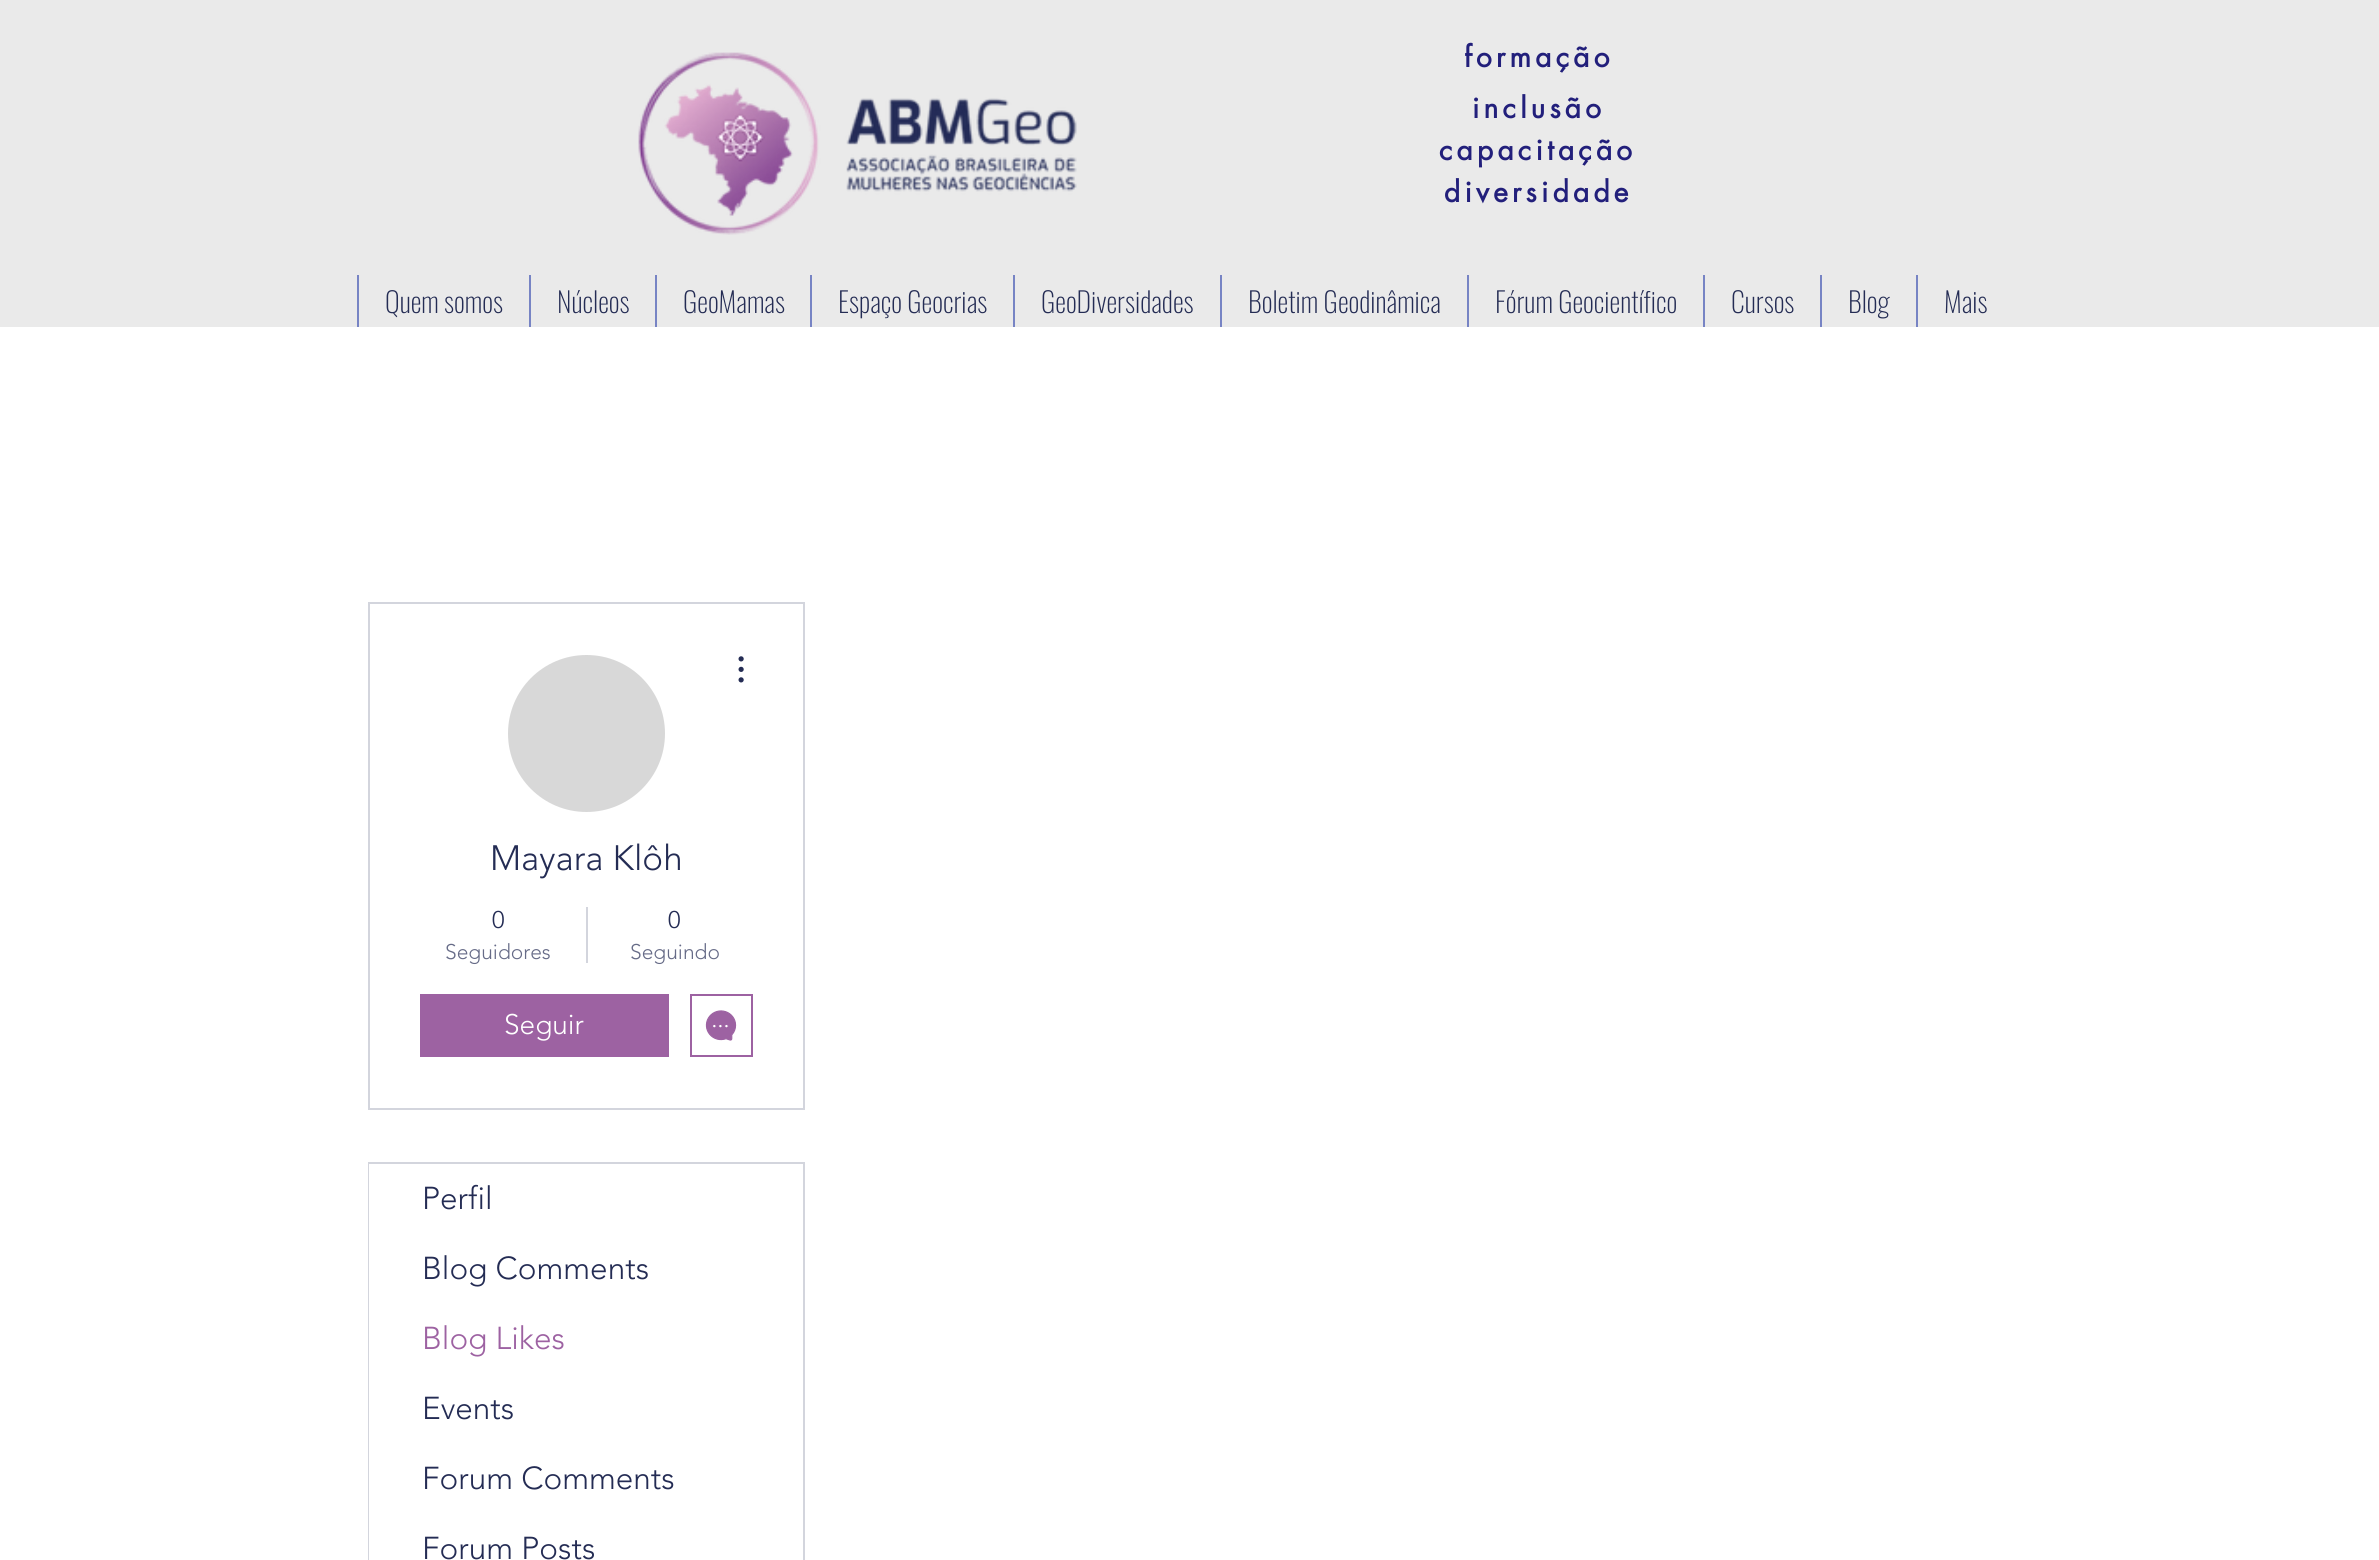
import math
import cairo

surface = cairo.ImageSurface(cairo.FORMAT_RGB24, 2379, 1560)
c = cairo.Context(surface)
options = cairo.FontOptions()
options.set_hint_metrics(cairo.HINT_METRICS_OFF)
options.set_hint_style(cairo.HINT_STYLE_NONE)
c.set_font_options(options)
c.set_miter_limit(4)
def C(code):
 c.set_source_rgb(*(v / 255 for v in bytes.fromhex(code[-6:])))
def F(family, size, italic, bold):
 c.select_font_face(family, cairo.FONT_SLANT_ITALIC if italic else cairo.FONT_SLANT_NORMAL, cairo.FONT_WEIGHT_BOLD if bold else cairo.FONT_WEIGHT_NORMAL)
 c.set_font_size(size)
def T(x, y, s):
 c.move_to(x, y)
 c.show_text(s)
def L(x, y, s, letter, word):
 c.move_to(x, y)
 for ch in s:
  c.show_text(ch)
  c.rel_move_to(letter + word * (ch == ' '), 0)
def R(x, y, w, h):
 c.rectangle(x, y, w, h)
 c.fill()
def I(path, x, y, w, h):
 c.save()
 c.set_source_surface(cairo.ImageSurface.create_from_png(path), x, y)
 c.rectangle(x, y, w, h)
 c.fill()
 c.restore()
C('ffffff')
c.paint()
C('eaeaea')
R(0,0,2379,327)
I('1.png',638,52,439,183)
F('futura',28,0,1)
C('221f7b')
L(1464,67,'formação',4.25,0)
L(1472,118,'inclusão',4.25,0)
L(1439,160,'capacitação',4.25,0)
L(1444,202,'diversidade',4.25,0)
C('7784c4')
R(357,275,2,52)
F('Oswald ExtraLight',28,0,0)
C('242c54')
T(385,313,'Quem somos')
C('7784c4')
R(529,275,2,52)
C('242c54')
T(557,313,'Núcleos')
C('7784c4')
R(655,275,2,52)
C('242c54')
T(683,313,'GeoMamas')
C('7784c4')
R(810,275,2,52)
C('242c54')
T(838,313,'Espaço Geocrias')
C('7784c4')
R(1013,275,2,52)
C('242c54')
T(1041,313,'GeoDiversidades')
C('7784c4')
R(1220,275,2,52)
C('242c54')
T(1248,313,'Boletim Geodinâmica')
C('7784c4')
R(1467,275,2,52)
C('242c54')
T(1495,313,'Fórum Geocientífico')
C('7784c4')
R(1703,275,2,52)
C('242c54')
T(1731,313,'Cursos')
C('7784c4')
R(1820,275,2,52)
C('242c54')
T(1848,313,'Blog')
C('7784c4')
R(1916,275,2,52)
C('242c54')
T(1944,313,'Mais')
c.rectangle(369,603,435,506)
C('d3d5dd')
c.stroke()
C('d8d8d8')
c.arc(586.5,733.5,78.5,0,2 * math.pi)
c.fill()
I('2.png',738,656,6,27)
F('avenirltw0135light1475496 Light',35,0,0)
C('242c54')
T(490,870,'Mayara Klôh')
F('avenirltw0135light1475496 Light',24,0,0)
T(492,928,'0')
F('avenirltw0135light1475496 Light',21,0,0)
C('666b87')
T(445,959,'Seguidores')
C('d3d5dd')
R(586,907,2,56)
F('avenirltw0135light1475496 Light',24,0,0)
C('242c54')
T(668,928,'0')
F('avenirltw0135light1475496 Light',21,0,0)
C('666b87')
T(630,959,'Seguindo')
C('9d62a2')
R(420,994,249,63)
F('avenirltw0135light1475496 Light',28,0,0)
C('ffffff')
T(504,1034,'Seguir')
c.rectangle(691,995,61,61)
C('9d62a2')
c.stroke()
I('3.png',705,1010,32,31)
c.rectangle(369,1163,435,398)
C('d3d5dd')
c.stroke()
C('ffffff')
R(369,1164,1,396)
F('avenirltw0135light1475496 Light',31.5,0,0)
C('242c54')
T(422,1209,'Perfil')
T(422,1279,'Blog Comments')
C('9d62a2')
T(422,1349,'Blog Likes')
C('242c54')
T(422,1419,'Events')
T(422,1489,'Forum Comments')
T(422,1559,'Forum Posts')
surface.write_to_png('o.png')
